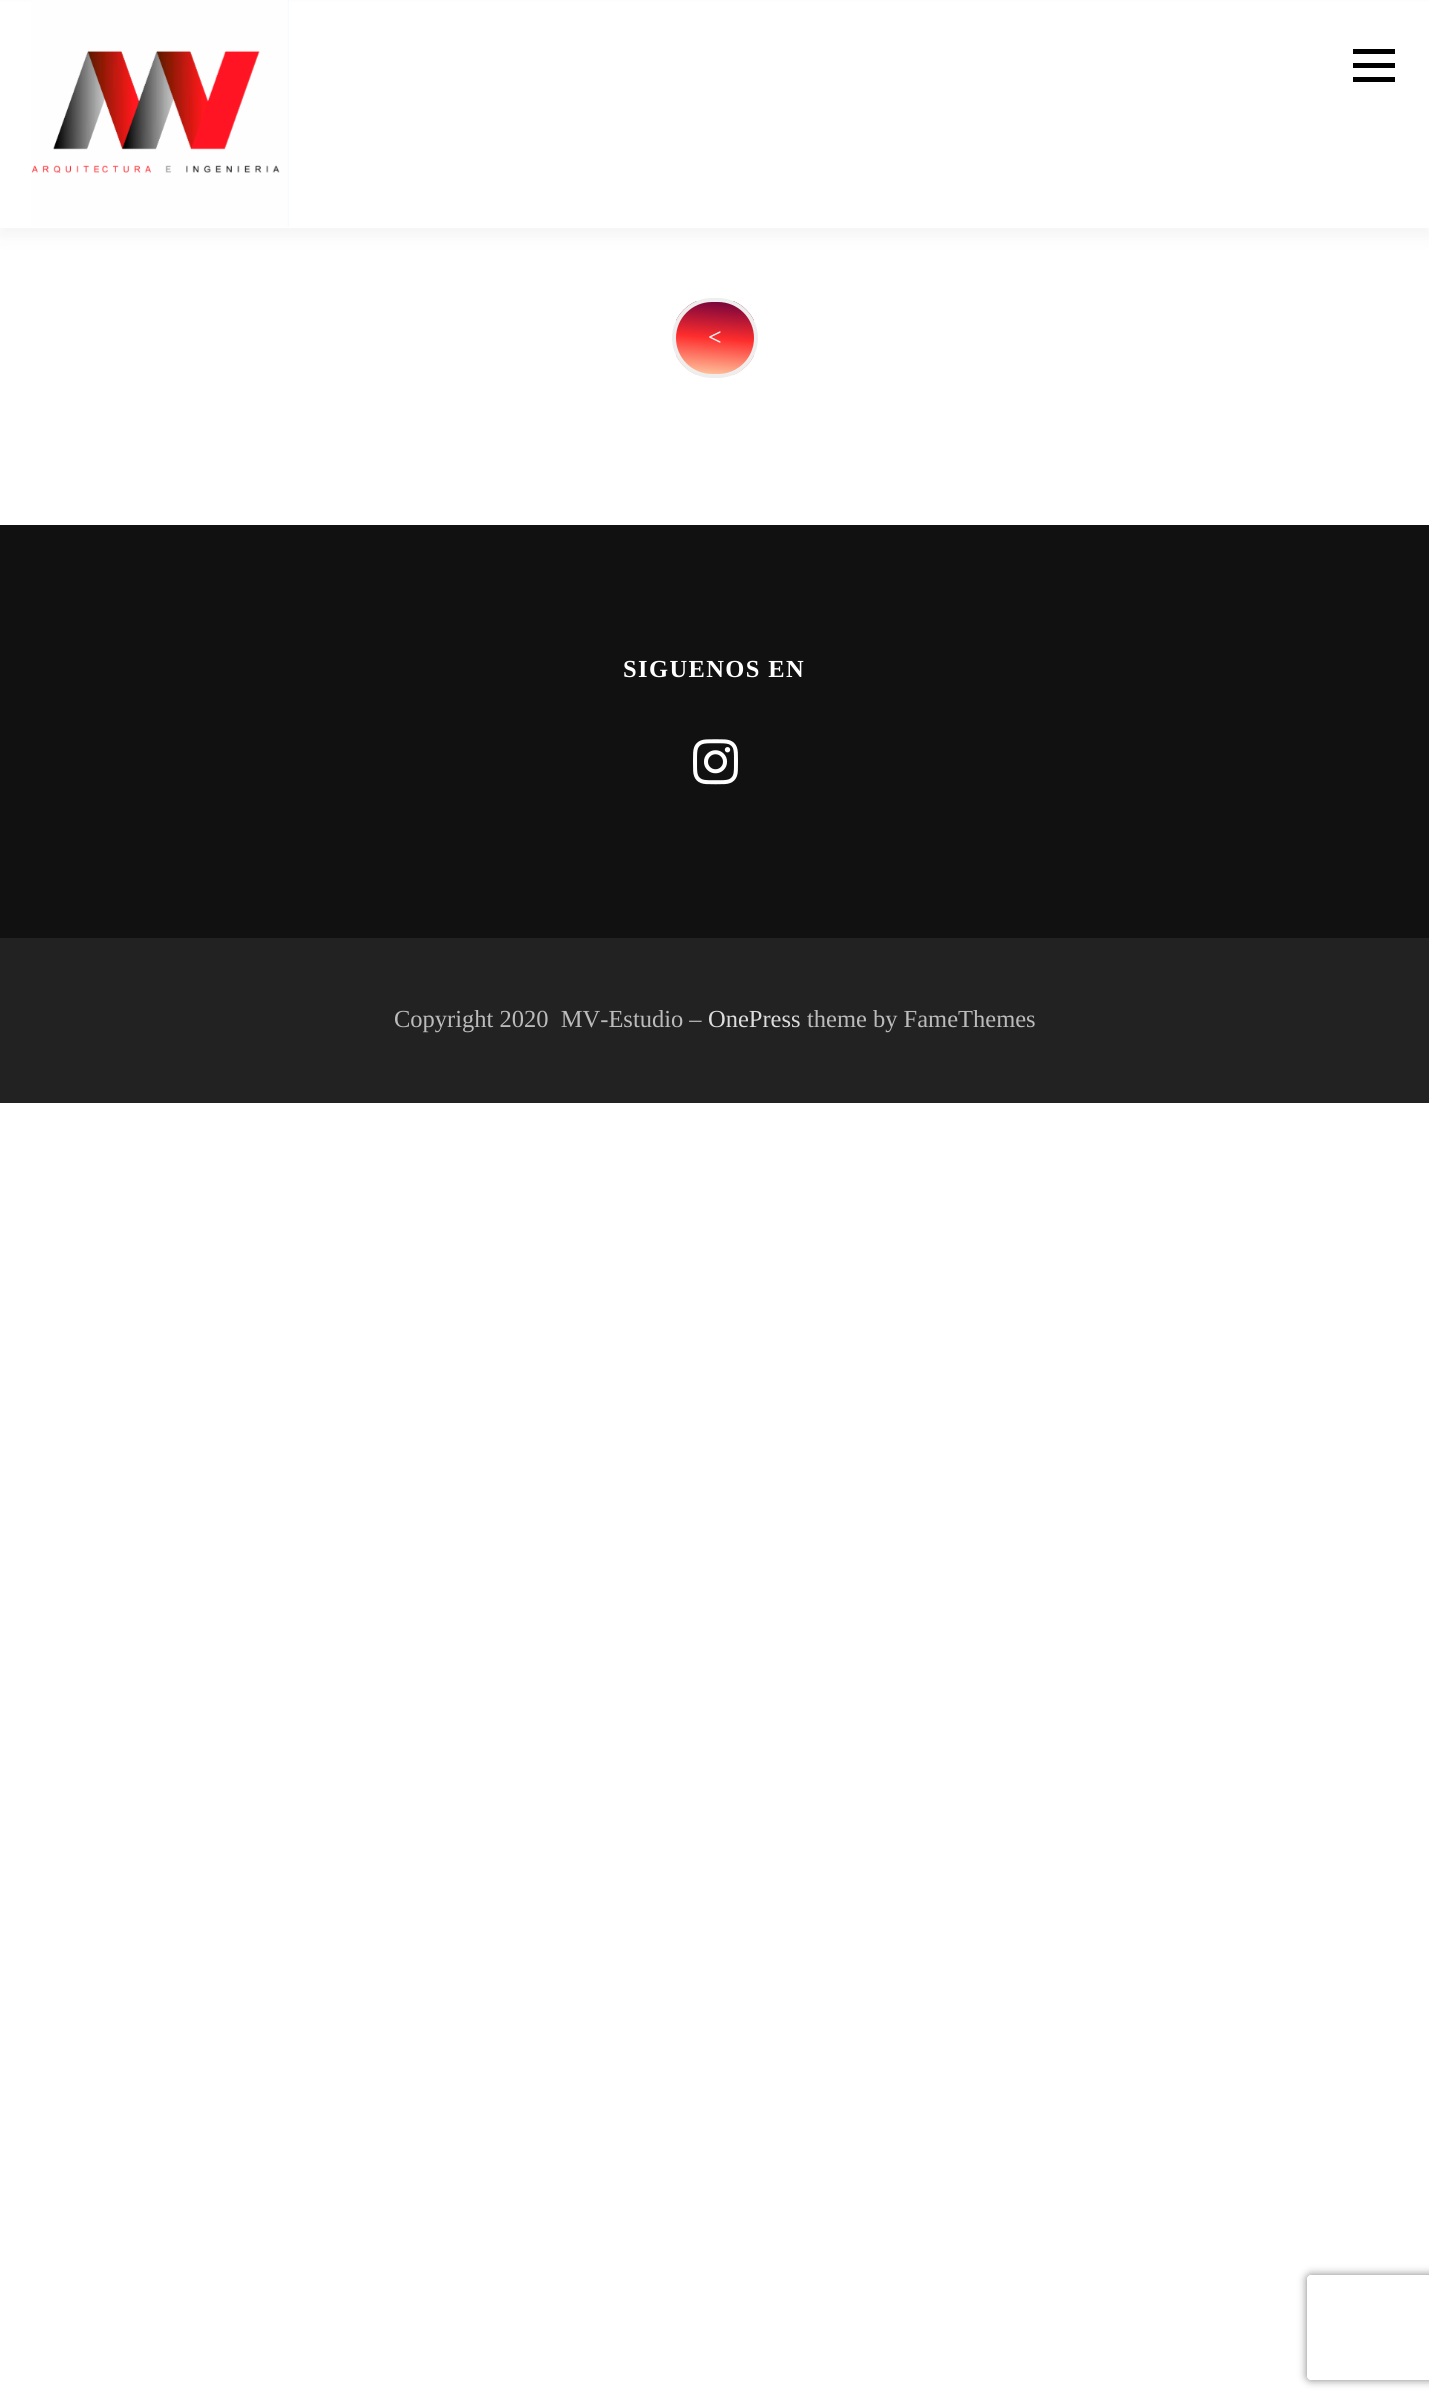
import math
import cairo

surface = cairo.ImageSurface(cairo.FORMAT_RGB24, 1429, 2403)
c = cairo.Context(surface)
options = cairo.FontOptions()
options.set_hint_metrics(cairo.HINT_METRICS_OFF)
options.set_hint_style(cairo.HINT_STYLE_NONE)
c.set_font_options(options)
c.set_miter_limit(4)
def C(code):
 c.set_source_rgb(*(v / 255 for v in bytes.fromhex(code[-6:])))
def F(family, size, italic, bold):
 c.select_font_face(family, cairo.FONT_SLANT_ITALIC if italic else cairo.FONT_SLANT_NORMAL, cairo.FONT_WEIGHT_BOLD if bold else cairo.FONT_WEIGHT_NORMAL)
 c.set_font_size(size)
def T(x, y, s):
 c.move_to(x, y)
 c.show_text(s)
def L(x, y, s, letter, word):
 c.move_to(x, y)
 for ch in s:
  c.show_text(ch)
  c.rel_move_to(letter + word * (ch == ' '), 0)
def R(x, y, w, h):
 c.rectangle(x, y, w, h)
 c.fill()
def Q(x, y, w, h, r):
 c.new_sub_path()
 for i, (u, v) in enumerate([(x + w - r, y + h - r), (x + r, y + h - r), (x + r, y + r), (x + w - r, y + r)]):
  c.arc(u, v, r, i * math.pi / 2, (i + 1) * math.pi / 2)
 c.close_path()
def S(x, y, w, h, r, blur, alpha):
 c.push_group_with_content(cairo.CONTENT_ALPHA)
 c.set_operator(cairo.OPERATOR_SOURCE)
 for i in range(15, -16, -2):
  e = blur * i / 6
  if min(w, h) + 2 * e > 0:
   c.set_source_rgba(0, 0, 0, alpha * math.erfc((i - 1) / 8.5) / 2)
   Q(x - e, y - e, w + 2 * e, h + 2 * e, max(0, min(r + e + blur * .6, min(w, h) / 2 + e)))
   c.fill()
 c.mask(c.pop_group())
def I(path, x, y, w, h):
 c.save()
 c.set_source_surface(cairo.ImageSurface.create_from_png(path), x, y)
 c.rectangle(x, y, w, h)
 c.fill()
 c.restore()
C('ffffff')
c.paint()
C('323232')
S(0,9,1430,227,0,9,.06)
C('ffffff')
R(0,2,1429,226)
I('1.png',31,0,258,227)
C('000000')
R(1353,63,42,5)
R(1353,49,42,5)
R(1353,77,42,5)
c.save()
Q(672,298,86,80,40)
c.clip()
gradient = cairo.LinearGradient(711,378,718,298)
gradient.add_color_stop_rgba(0,0.996,0.804,0.647,1)
gradient.add_color_stop_rgba(.5,0.996,0.176,0.176,1)
gradient.add_color_stop_rgba(1,0.42,0,0.243,1)
c.set_source(gradient)
R(676,301,78,74)
c.restore()
Q(674,300,82,76,38)
C('eeeeee')
c.set_line_width(4)
c.stroke()
F('Liberation Serif',24,0,1)
T(708,345,'<')
C('111111')
R(0,525,1429,413)
F('Liberation Serif',24.5,0,1)
C('ffffff')
L(623,677,'SIGUENOS EN',1.4,0)
I('2.png',693,739,45,46)
C('222222')
R(0,938,1429,165)
F('Liberation Serif',24.5,0,0)
C('bbbbbb')
T(394,1027,'Copyright 2020  MV-Estudio –')
C('dddddd')
T(708,1027,'OnePress')
C('bbbbbb')
T(807,1027,'theme by FameThemes')
c.save()
c.set_fill_rule(cairo.FILL_RULE_EVEN_ODD)
c.new_path()
c.move_to(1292,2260)
c.line_to(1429,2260)
c.line_to(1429,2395)
c.line_to(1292,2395)
c.close_path()
c.move_to(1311,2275)
c.line_to(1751,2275)
c.curve_to(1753,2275,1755,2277,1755,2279)
c.line_to(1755,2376)
c.curve_to(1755,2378,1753,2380,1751,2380)
c.line_to(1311,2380)
c.curve_to(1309,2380,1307,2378,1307,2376)
c.line_to(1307,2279)
c.curve_to(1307,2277,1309,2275,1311,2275)
c.close_path()
c.clip()
C('808080')
S(1307,2275,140,105,4,4.5,1)
c.restore()
surface.write_to_png('o.png')
